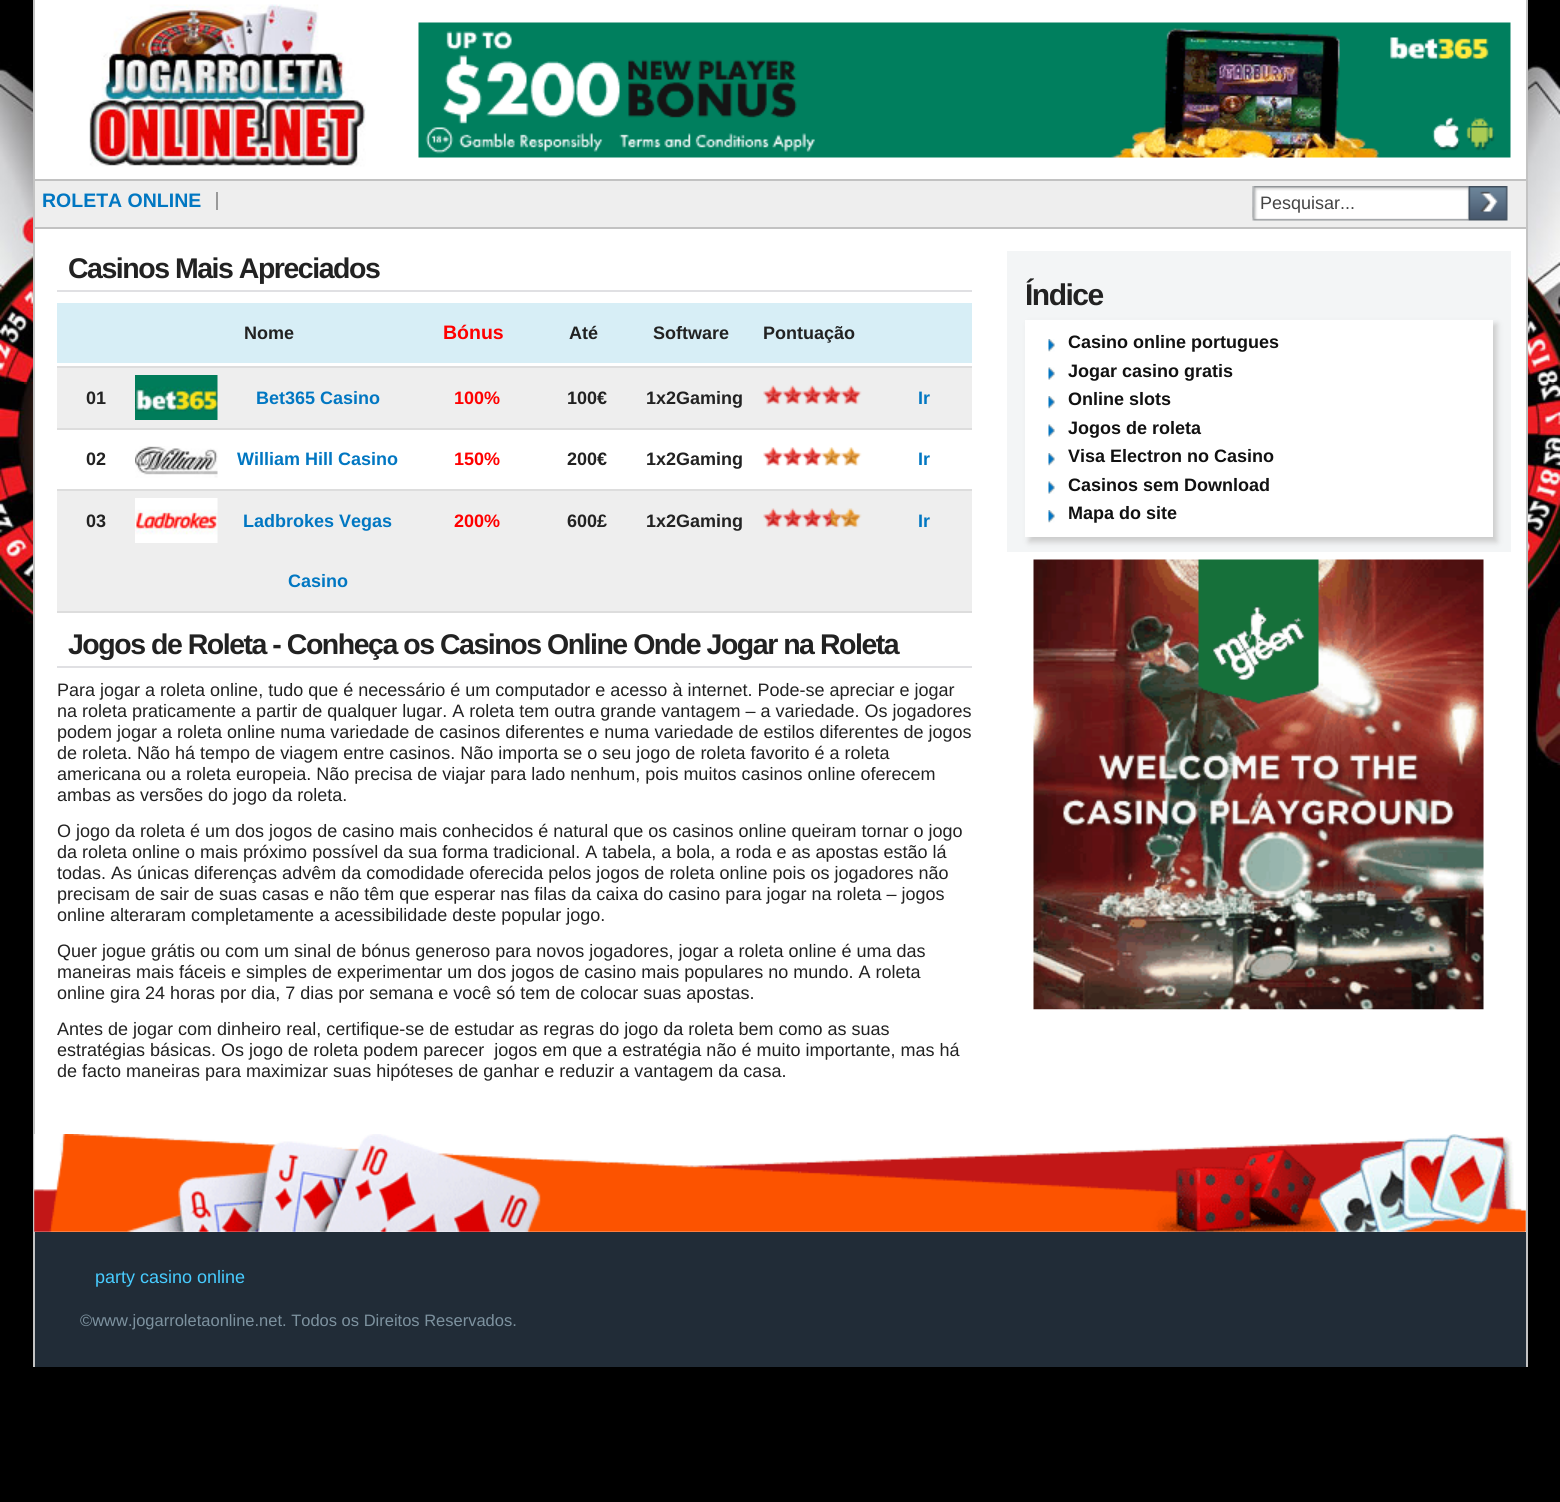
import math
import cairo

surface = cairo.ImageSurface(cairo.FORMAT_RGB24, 1560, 1502)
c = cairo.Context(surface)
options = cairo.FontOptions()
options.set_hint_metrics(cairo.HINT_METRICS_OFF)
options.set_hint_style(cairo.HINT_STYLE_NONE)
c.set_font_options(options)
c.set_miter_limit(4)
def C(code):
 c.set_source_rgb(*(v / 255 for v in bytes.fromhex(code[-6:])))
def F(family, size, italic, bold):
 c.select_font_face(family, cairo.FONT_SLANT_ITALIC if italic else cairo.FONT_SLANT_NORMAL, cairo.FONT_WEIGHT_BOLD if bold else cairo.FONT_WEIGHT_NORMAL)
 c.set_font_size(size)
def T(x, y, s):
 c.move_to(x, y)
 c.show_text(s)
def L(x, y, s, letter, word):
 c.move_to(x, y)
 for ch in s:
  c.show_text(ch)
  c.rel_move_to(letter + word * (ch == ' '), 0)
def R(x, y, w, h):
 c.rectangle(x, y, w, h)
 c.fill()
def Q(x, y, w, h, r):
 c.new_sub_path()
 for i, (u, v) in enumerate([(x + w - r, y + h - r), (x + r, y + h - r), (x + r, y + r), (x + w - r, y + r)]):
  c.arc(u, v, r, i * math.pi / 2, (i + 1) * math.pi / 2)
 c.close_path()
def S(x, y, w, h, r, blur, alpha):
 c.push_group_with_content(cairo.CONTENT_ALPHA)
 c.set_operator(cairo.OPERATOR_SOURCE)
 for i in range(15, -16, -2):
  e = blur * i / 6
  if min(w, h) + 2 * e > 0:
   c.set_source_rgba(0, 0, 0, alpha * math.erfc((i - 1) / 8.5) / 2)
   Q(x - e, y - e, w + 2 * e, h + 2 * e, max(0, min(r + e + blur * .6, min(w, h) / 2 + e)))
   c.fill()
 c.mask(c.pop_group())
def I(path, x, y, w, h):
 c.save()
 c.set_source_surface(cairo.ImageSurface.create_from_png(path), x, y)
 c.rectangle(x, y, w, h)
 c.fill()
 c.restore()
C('000000')
c.paint()
I('1.png',0,0,1560,768)
C('ffffff')
R(35,0,1491,1232)
C('c3c3c3')
R(1526,0,2,1367)
R(33,0,2,1367)
I('2.png',89,4,277,163)
I('3.png',418,22,1093,136)
C('eeeeee')
R(35,181,1491,46)
C('c2c2c2')
R(35,179,1491,2)
R(35,227,1491,2)
C('999999')
R(216,192,2,18)
F('Liberation Sans',19.5,0,1)
C('0177c2')
T(42,207,'ROLETA ONLINE')
I('4.png',1252,186,217,35)
I('5.png',1252,186,217,32)
F('Liberation Sans',18,0,0)
C('444444')
T(1260,209,'Pesquisar...')
I('6.png',1468,186,40,35)
C('e0e0e3')
R(57,290,915,2)
F('Liberation Sans',28.5,0,1)
C('222222')
L(68,278,'Casinos Mais Apreciados',-1.48,0)
C('d7eef6')
R(57,303,915,60)
F('Liberation Sans',18,0,1)
C('222222')
T(244,339,'Nome')
F('Liberation Sans',19.5,0,1)
C('ff0000')
T(443,339,'Bónus')
F('Liberation Sans',18,0,1)
C('222222')
T(569,339,'Até')
T(653,339,'Software')
T(763,339,'Pontuação')
C('eeeeee')
R(57,368,915,60)
C('dddddd')
R(57,366,915,2)
R(57,428,915,2)
C('222222')
T(86,404,'01')
I('7.png',135,375,83,45)
C('0177c2')
T(256,404,'Bet365 Casino')
C('ff0000')
T(454,404,'100%')
C('222222')
T(567,404,'100€')
T(646,404,'1x2Gaming')
I('8.png',763,385,99,20)
C('0177c2')
T(918,404,'Ir')
C('222222')
T(86,465,'02')
I('9.png',135,446,83,32)
C('0177c2')
T(237,465,'William Hill Casino')
C('ff0000')
T(454,465,'150%')
C('222222')
T(567,465,'200€')
T(646,465,'1x2Gaming')
I('10.png',763,447,99,19)
C('0177c2')
T(918,465,'Ir')
C('eeeeee')
R(57,491,915,120)
C('dddddd')
R(57,489,915,2)
R(57,611,915,2)
C('222222')
T(86,527,'03')
I('11.png',135,498,83,45)
C('0177c2')
T(243,527,'Ladbrokes Vegas')
T(288,587,'Casino')
C('ff0000')
T(454,527,'200%')
C('222222')
T(567,527,'600£')
T(646,527,'1x2Gaming')
I('12.png',763,508,99,20)
C('0177c2')
T(918,527,'Ir')
C('e0e0e3')
R(57,666,915,2)
F('Liberation Sans',28.5,0,1)
C('222222')
L(68,654,'Jogos de Roleta - Conheça os Casinos Online Onde Jogar na Roleta',-1.48,0)
F('Liberation Sans',18,0,0)
T(57,696,'Para jogar a roleta online, tudo que é necessário é um computador e acesso à internet. Pode-se apreciar e jogar')
T(57,717,'na roleta praticamente a partir de qualquer lugar. A roleta tem outra grande vantagem – a variedade. Os jogadores')
T(57,738,'podem jogar a roleta online numa variedade de casinos diferentes e numa variedade de estilos diferentes de jogos')
T(57,759,'de roleta. Não há tempo de viagem entre casinos. Não importa se o seu jogo de roleta favorito é a roleta')
T(57,780,'americana ou a roleta europeia. Não precisa de viajar para lado nenhum, pois muitos casinos online oferecem')
T(57,801,'ambas as versões do jogo da roleta.')
T(57,837,'O jogo da roleta é um dos jogos de casino mais conhecidos é natural que os casinos online queiram tornar o jogo')
T(57,858,'da roleta online o mais próximo possível da sua forma tradicional. A tabela, a bola, a roda e as apostas estão lá')
T(57,879,'todas. As únicas diferenças advêm da comodidade oferecida pelos jogos de roleta online pois os jogadores não')
T(57,900,'precisam de sair de suas casas e não têm que esperar nas filas da caixa do casino para jogar na roleta – jogos')
T(57,921,'online alteraram completamente a acessibilidade deste popular jogo.')
T(57,957,'Quer jogue grátis ou com um sinal de bónus generoso para novos jogadores, jogar a roleta online é uma das')
T(57,978,'maneiras mais fáceis e simples de experimentar um dos jogos de casino mais populares no mundo. A roleta')
T(57,999,'online gira 24 horas por dia, 7 dias por semana e você só tem de colocar suas apostas.')
T(57,1035,'Antes de jogar com dinheiro real, certifique-se de estudar as regras do jogo da roleta bem como as suas')
T(57,1056,'estratégias básicas. Os jogo de roleta podem parecer  jogos em que a estratégia não é muito importante, mas há')
T(57,1077,'de facto maneiras para maximizar suas hipóteses de ganhar e reduzir a vantagem da casa.')
C('f3f5f6')
R(1007,251,504,301)
F('Liberation Sans',30,0,1)
C('222222')
L(1025,305,'Índice',-1.5,0)
C('cccccc')
S(1029,324,468,218,0,3,1)
C('ffffff')
R(1025,320,468,217)
I('13.png',1048,339,7,13)
F('Liberation Sans',18,0,1)
C('111111')
T(1068,348,'Casino online portugues')
I('14.png',1048,367,7,13)
T(1068,377,'Jogar casino gratis')
I('13.png',1048,396,7,13)
T(1068,405,'Online slots')
I('14.png',1048,424,7,13)
T(1068,434,'Jogos de roleta')
I('13.png',1048,453,7,13)
T(1068,462,'Visa Electron no Casino')
I('14.png',1048,481,7,13)
T(1068,491,'Casinos sem Download')
I('13.png',1048,510,7,13)
T(1068,519,'Mapa do site')
I('15.png',1033,559,451,451)
I('16.png',34,1134,1492,98)
I('17.png',34,1134,1492,98)
C('212c37')
R(35,1232,1491,135)
F('Liberation Sans',18,0,0)
C('47ccff')
T(95,1283,'party casino online')
F('Liberation Sans',16.5,0,0)
C('7d929f')
T(80,1326,'©www.jogarroletaonline.net. Todos os Direitos Reservados.')
surface.write_to_png('o.png')
